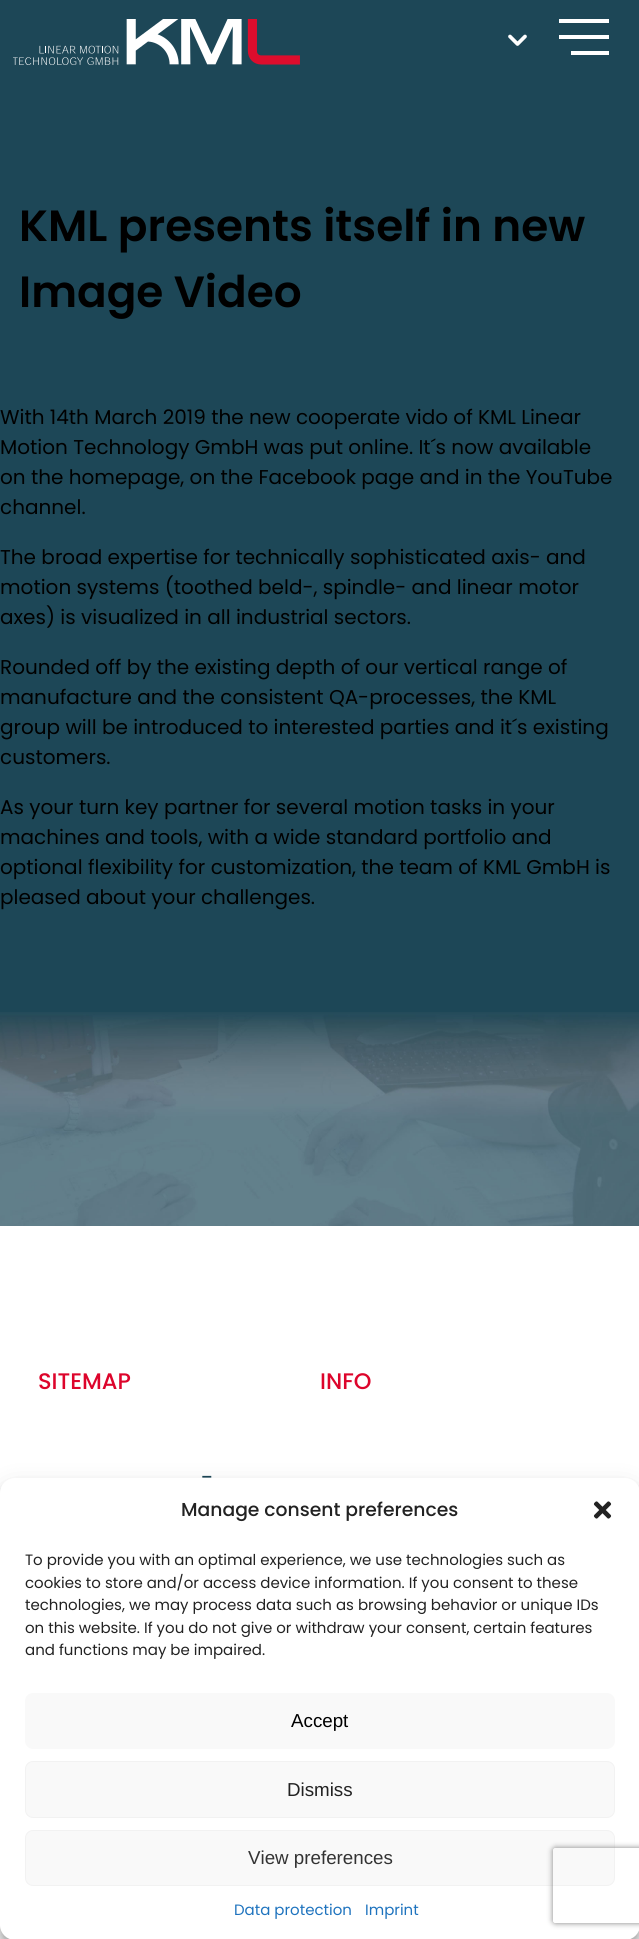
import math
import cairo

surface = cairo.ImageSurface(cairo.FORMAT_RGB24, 639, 1939)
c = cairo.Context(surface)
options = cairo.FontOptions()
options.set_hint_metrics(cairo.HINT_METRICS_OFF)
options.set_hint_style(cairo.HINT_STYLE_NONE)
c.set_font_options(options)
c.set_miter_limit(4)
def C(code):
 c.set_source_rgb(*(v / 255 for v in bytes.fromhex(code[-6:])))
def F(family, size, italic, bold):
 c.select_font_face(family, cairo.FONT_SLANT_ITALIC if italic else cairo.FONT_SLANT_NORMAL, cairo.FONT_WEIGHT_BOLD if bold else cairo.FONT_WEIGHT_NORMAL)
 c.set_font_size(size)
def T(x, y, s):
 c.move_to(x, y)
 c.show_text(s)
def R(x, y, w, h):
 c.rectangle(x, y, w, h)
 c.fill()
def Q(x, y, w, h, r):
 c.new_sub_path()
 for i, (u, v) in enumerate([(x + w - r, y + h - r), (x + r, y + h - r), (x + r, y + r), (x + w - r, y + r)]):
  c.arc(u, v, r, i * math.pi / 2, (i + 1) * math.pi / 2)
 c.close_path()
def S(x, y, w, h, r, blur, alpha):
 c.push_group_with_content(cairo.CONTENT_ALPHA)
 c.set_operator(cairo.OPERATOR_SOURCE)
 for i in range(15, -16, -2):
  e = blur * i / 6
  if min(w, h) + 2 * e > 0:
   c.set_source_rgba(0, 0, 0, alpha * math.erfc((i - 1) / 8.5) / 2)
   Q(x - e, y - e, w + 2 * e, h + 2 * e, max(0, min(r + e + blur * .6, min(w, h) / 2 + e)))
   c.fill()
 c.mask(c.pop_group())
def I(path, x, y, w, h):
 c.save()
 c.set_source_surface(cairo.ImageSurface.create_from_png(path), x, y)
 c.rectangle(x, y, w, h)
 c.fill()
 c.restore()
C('1d4757')
c.paint()
I('1.png',0,1012,639,214)
I('2.png',13,19,287,46)
c.new_path()
c.move_to(510,36.5)
c.line_to(517.5,44)
c.move_to(525,36.5)
c.line_to(517.5,44)
C('ffffff')
c.set_line_width(3.7)
c.set_line_cap(cairo.LINE_CAP_ROUND)
c.stroke()
R(559,19,50,4)
R(559,35,50,4)
R(571,51,38,4)
F('Poppins SemiBold',43.75,0,0)
C('000000')
T(19,241,'KML presents itself in new')
T(19,307,'Image Video')
F('Poppins',20,0,0)
T(0,424,'With 14th March 2019 the new cooperate vido of KML Linear')
T(0,454,'Motion Technology GmbH was put online. It´s now available')
T(0,484,'on the homepage, on the Facebook page and in the YouTube')
T(0,514,'channel.')
T(0,564,'The broad expertise for technically sophisticated axis- and')
T(0,594,'motion systems (toothed beld-, spindle- and linear motor')
T(0,624,'axes) is visualized in all industrial sectors.')
T(0,674,'Rounded off by the existing depth of our vertical range of')
T(0,704,'manufacture and the consistent QA-processes, the KML')
T(0,734,'group will be introduced to interested parties and it´s existing')
T(0,764,'customers.')
T(0,814,'As your turn key partner for several motion tasks in your')
T(0,844,'machines and tools, with a wide standard portfolio and')
T(0,874,'optional flexibility for customization, the team of KML GmbH is')
T(0,904,'pleased about your challenges.')
C('ffffff')
R(0,1226,639,713)
F('Poppins Medium',22.5,0,0)
C('dd042b')
T(38,1389,'SITEMAP')
T(320,1389,'INFO')
F('Poppins',22.5,0,0)
C('1d4757')
T(201,1485,'-')
C('000000')
S(0,1485,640,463,15,4,.23)
S(0,1490,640,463,15,12.5,.19)
C('ffffff')
Q(0,1478,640,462,15)
c.fill()
F('Poppins Medium',18.75,0,0)
C('222222')
T(181,1516,'Manage consent preferences')
I('3.png',593,1501,19,18)
F('Poppins',15,0,0)
T(25,1565,'To provide you with an optimal experience, we use technologies such as')
T(25,1588,'cookies to store and/or access device information. If you consent to these')
T(25,1610,'technologies, we may process data such as browsing behavior or unique IDs')
T(25,1633,'on this website. If you do not give or withdraw your consent, certain features')
T(25,1655,'and functions may be impaired.')
C('f9f9f9')
Q(25,1693,590,56,8)
c.fill()
F('Liberation Sans',18.75,0,0)
C('000000')
T(291,1727,'Accept')
C('f9f9f9')
Q(25.5,1761.5,589,56,7.5)
c.fill_preserve()
C('f2f2f2')
c.set_line_width(1)
c.set_line_cap(cairo.LINE_CAP_BUTT)
c.stroke()
C('222222')
T(287,1796,'Dismiss')
C('f9f9f9')
Q(25.5,1830.5,589,55,7.5)
c.fill_preserve()
C('f2f2f2')
c.stroke()
C('333333')
T(248,1864,'View preferences')
F('Poppins',15,0,0)
C('1e73be')
T(234,1915,'Data protection')
T(365,1915,'Imprint')
c.save()
c.set_fill_rule(cairo.FILL_RULE_EVEN_ODD)
c.new_path()
c.move_to(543,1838)
c.line_to(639,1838)
c.line_to(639,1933)
c.line_to(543,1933)
c.close_path()
c.move_to(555.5,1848)
c.line_to(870.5,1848)
c.curve_to(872,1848,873,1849,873,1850.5)
c.line_to(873,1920.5)
c.curve_to(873,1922,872,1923,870.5,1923)
c.line_to(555.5,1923)
c.curve_to(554,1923,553,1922,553,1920.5)
c.line_to(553,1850.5)
c.curve_to(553,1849,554,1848,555.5,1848)
c.close_path()
c.clip()
C('808080')
S(553,1848,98,75,2.5,3,1)
c.restore()
surface.write_to_png('o.png')
